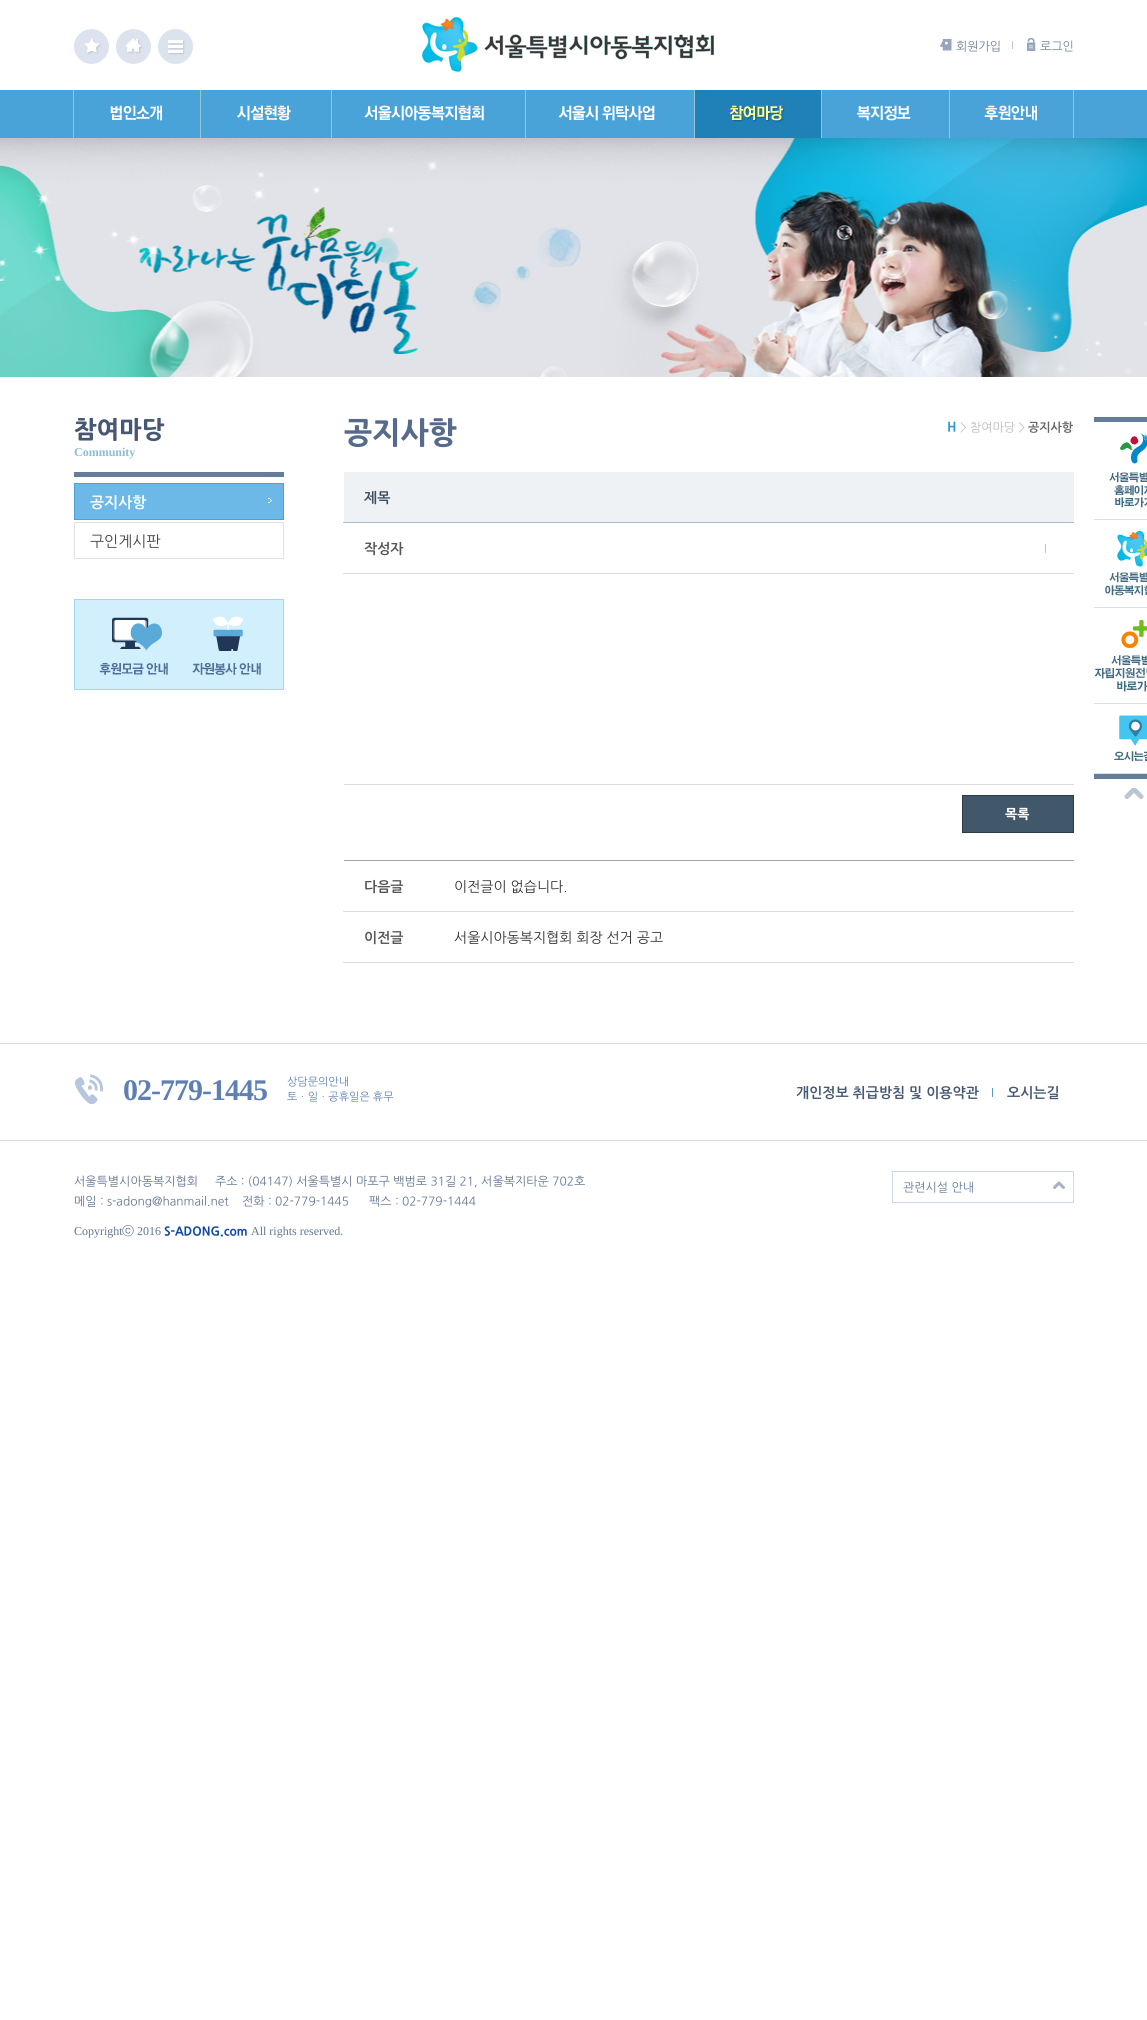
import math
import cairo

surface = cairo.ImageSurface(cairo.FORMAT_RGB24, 1147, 2020)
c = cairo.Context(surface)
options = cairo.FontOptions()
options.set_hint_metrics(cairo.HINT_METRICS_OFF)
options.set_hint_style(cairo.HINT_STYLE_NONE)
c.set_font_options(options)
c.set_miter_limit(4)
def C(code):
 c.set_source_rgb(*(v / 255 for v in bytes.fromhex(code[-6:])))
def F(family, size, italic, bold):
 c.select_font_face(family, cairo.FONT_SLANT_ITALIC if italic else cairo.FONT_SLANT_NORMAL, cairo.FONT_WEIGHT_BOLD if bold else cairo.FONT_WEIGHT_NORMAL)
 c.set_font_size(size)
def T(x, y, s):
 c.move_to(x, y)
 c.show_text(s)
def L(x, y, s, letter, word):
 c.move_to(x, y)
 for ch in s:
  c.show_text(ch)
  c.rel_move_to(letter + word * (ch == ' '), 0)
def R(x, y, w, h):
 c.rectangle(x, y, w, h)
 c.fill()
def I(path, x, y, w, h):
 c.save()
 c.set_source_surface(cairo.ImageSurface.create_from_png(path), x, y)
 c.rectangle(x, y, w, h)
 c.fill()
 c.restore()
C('ffffff')
c.paint()
I('1.png',74,29,35,35)
I('2.png',116,29,35,35)
I('3.png',158,29,35,35)
I('4.png',422,17,292,55)
I('5.png',940,39,12,12)
F('NanumGothic',12,0,0)
C('6f7f98')
T(956,50,'회원가입')
C('bfcbdc')
R(1012,41,1,8)
I('6.png',1027,38,9,13)
C('6f7f98')
T(1040,50,'로그인')
C('49a3d8')
R(0,90,1147,48)
I('7.png',73,90,128,48)
I('8.png',237,90,95,48)
I('9.png',364,90,162,48)
I('10.png',558,90,137,48)
I('11.png',695,90,127,48)
I('12.png',857,90,93,48)
I('13.png',984,90,90,48)
I('14.png',0,138,1147,239)
C('667d9a')
R(74,472,210,5)
F('NanumGothic ExtraBold',24,0,0)
C('455773')
T(74,437,'참여마당')
F('Liberation Serif',12,0,1)
C('8abed6')
T(74,456,'Community')
C('6cb9e7')
R(75,484,208,35)
I('15.png',268,498,4,5)
c.rectangle(74.5,483.5,209,36)
C('49a3d8')
c.set_line_width(1)
c.stroke()
F('NanumGothic',15,0,1)
C('ffffff')
T(90,507,'공지사항')
c.rectangle(74.5,522.5,209,36)
C('e2e2e2')
c.stroke()
F('NanumGothic',15,0,0)
C('444444')
T(90,546,'구인게시판')
c.rectangle(74.5,599.5,209,90)
C('9fd6f1')
c.stroke()
I('16.png',75,600,107,89)
I('17.png',182,600,101,89)
F('NanumGothic ExtraBold',30,0,0)
C('566b8b')
T(344,442,'공지사항')
F('NanumGothic ExtraBold',13,0,0)
C('3699d4')
T(947,431,'H')
F('NanumGothic',12,0,0)
C('bdbdbd')
T(960,431,'> 참여마당 >')
F('NanumGothic',12,0,1)
C('646464')
T(1028,431,'공지사항')
C('eff2f5')
R(344,472,730,50)
C('aebece')
R(343,522,731,1)
F('NanumGothic',14,0,1)
C('3a4d60')
T(364,502,'제목')
C('555555')
T(364,553,'작성자')
C('dcdcdc')
R(343,573,731,1)
C('c5c5c5')
R(1045,544,1,9)
C('dcdcdc')
R(344,784,730,1)
C('40586a')
c.rectangle(962.5,795.5,111,37)
c.fill_preserve()
C('2b3b47')
c.stroke()
F('NanumGothic ExtraBold',13,0,0)
C('ffffff')
T(1005,818,'목록')
C('a3a3a3')
R(344,860,730,1)
F('NanumGothic',14,0,1)
C('555555')
T(364,891,'다음글')
C('dcdcdc')
R(343,911,731,1)
F('NanumGothic',14,0,0)
C('333333')
T(454,891,'이전글이 없습니다.')
F('NanumGothic',14,0,1)
C('555555')
T(364,942,'이전글')
C('dcdcdc')
R(343,962,731,1)
F('NanumGothic',14,0,0)
C('333333')
T(454,942,'서울시아동복지협회 회장 선거 공고')
C('667d9a')
R(1094,417,53,5)
C('d6e1e7')
R(1094,519,53,1)
I('18.png',1109,433,38,75)
R(1094,607,53,1)
I('19.png',1105,531,42,65)
R(1094,703,53,1)
I('20.png',1094,620,53,72)
R(1094,773,53,1)
I('21.png',1114,715,33,47)
C('667d9a')
R(1094,774,53,5)
I('22.png',1124,788,20,11)
C('dcdcdc')
R(0,1043,1147,1)
I('23.png',75,1074,28,30)
F('Liberation Serif',30,0,1)
C('5e7fb2')
L(123,1100,'02-779-1445',-1,0)
F('NanumGothic',11,0,0)
T(287,1085,'상담문의안내')
T(287,1100,'토ㆍ일ㆍ공휴일은 휴무')
C('549dc8')
R(992,1088,1,9)
F('NanumGothic',14,0,1)
C('455773')
T(796,1097,'개인정보 취급방침 및 이용약관')
T(1007,1097,'오시는길')
C('dcdcdc')
R(0,1140,1147,1)
F('NanumGothic',12,0,0)
C('62748f')
T(74,1185,'서울특별시아동복지협회     주소 : (04147) 서울특별시 마포구 백범로 31길 21, 서울복지타운 702호')
T(74,1205,'메일 : s-adong@hanmail.net    전화 : 02-779-1445')
T(369,1205,'팩스 : 02-779-1444')
F('Liberation Serif',12,0,0)
T(74,1235,'Copyright')
F('WenQuanYi Zen Hei Medium',12,0,0)
T(122,1235,'ⓒ')
F('Liberation Serif',12,0,0)
T(137,1235,'2016')
F('NanumGothic ExtraBold',12,0,0)
C('104aa3')
T(164,1235,'S-ADONG.com')
F('Liberation Serif',12,0,0)
C('62748f')
T(251,1235,'All rights reserved.')
I('24.png',1053,1181,12,8)
c.rectangle(892.5,1171.5,181,31)
C('cfd7eb')
c.stroke()
F('NanumGothic',12,0,0)
C('63799a')
T(903,1191,'관련시설 안내')
surface.write_to_png('o.png')
